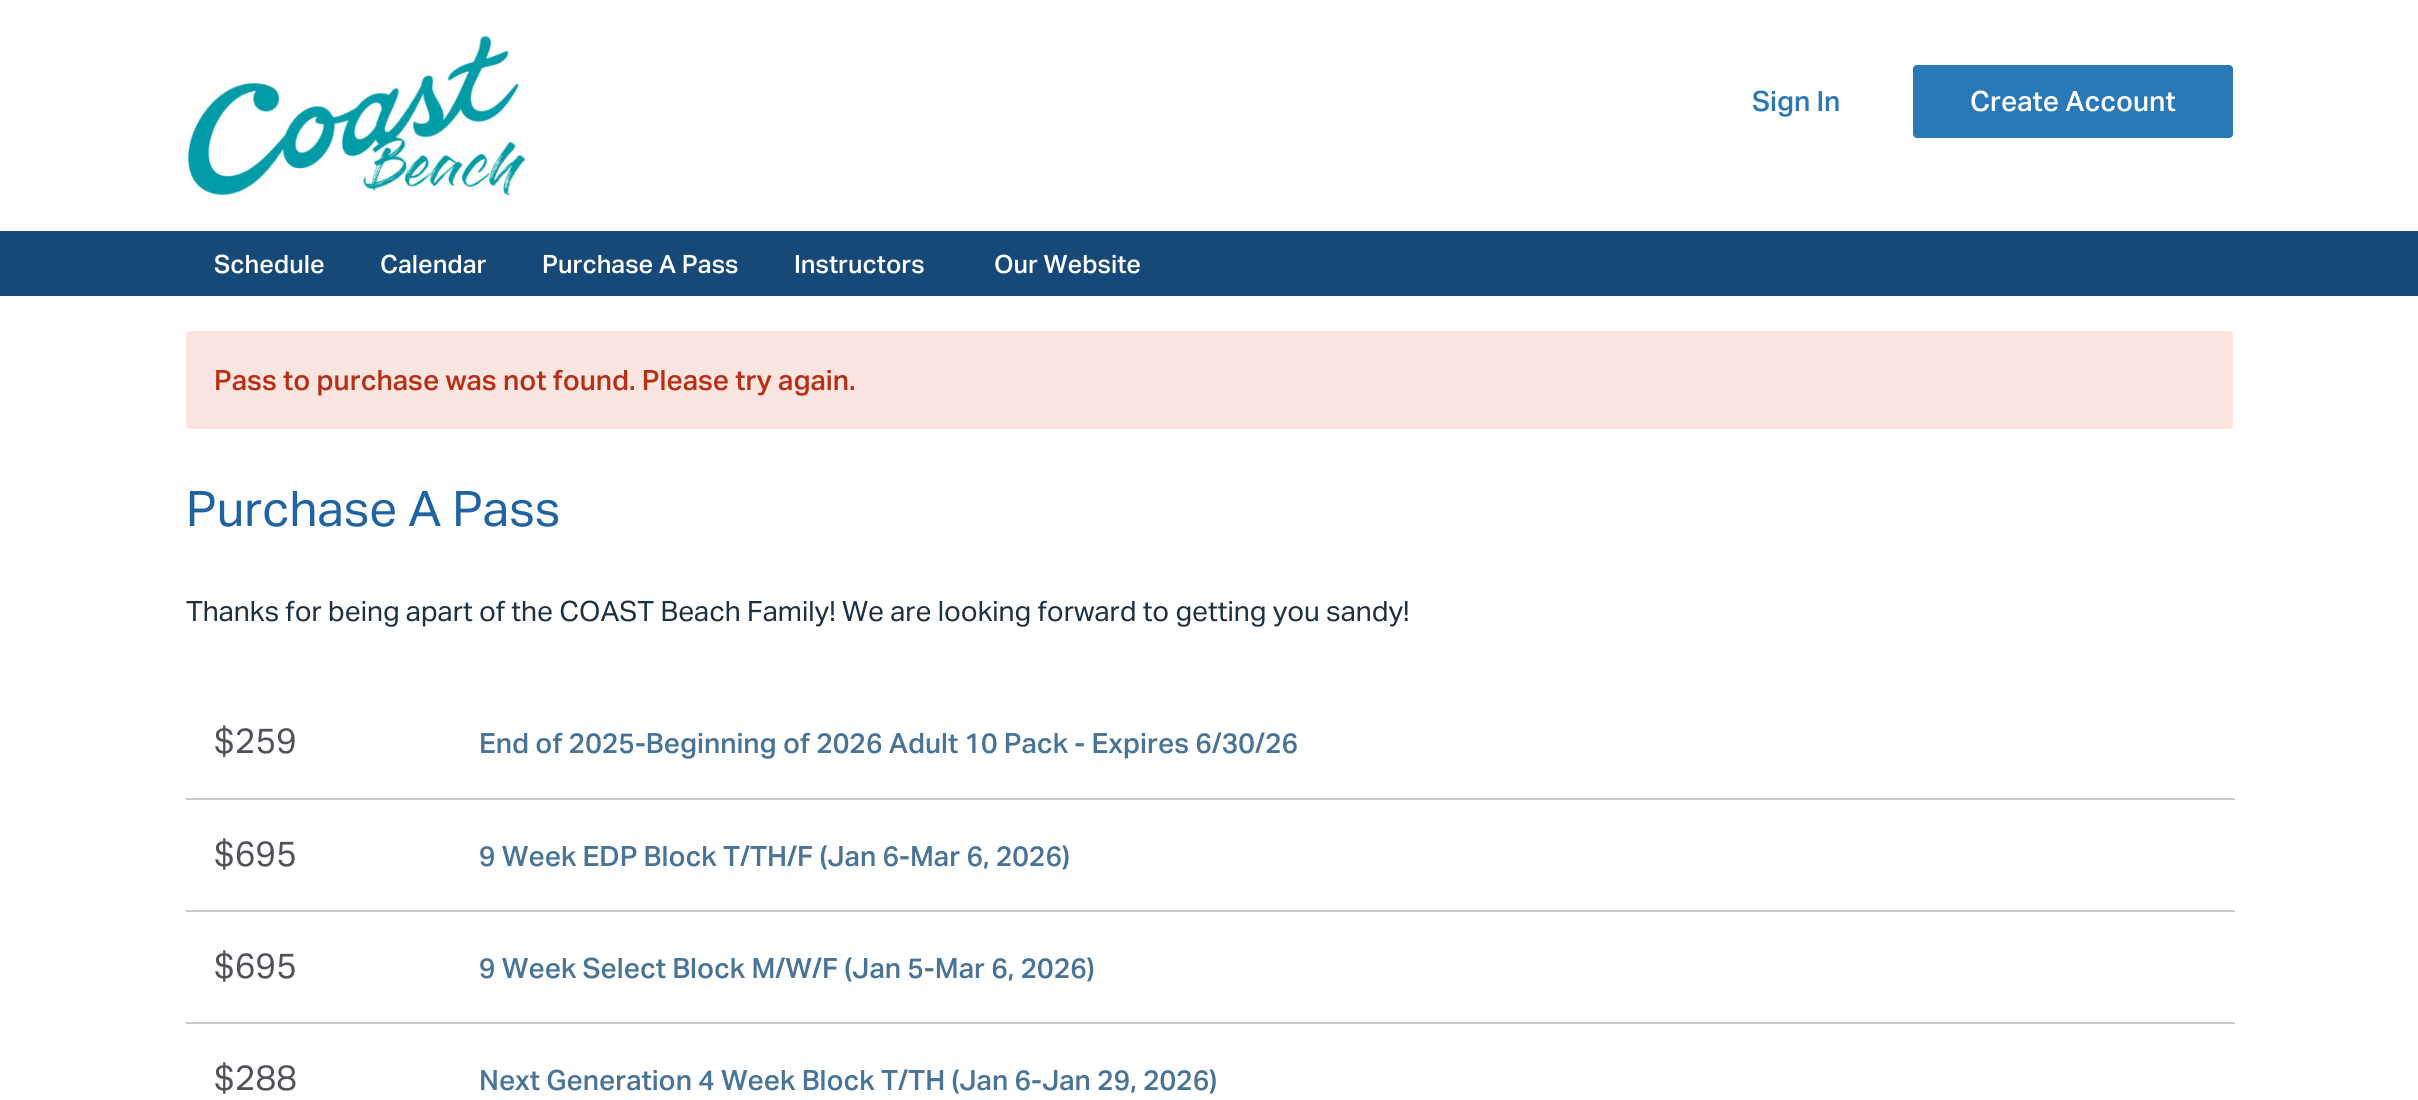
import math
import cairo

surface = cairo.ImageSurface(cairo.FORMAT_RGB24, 2418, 1100)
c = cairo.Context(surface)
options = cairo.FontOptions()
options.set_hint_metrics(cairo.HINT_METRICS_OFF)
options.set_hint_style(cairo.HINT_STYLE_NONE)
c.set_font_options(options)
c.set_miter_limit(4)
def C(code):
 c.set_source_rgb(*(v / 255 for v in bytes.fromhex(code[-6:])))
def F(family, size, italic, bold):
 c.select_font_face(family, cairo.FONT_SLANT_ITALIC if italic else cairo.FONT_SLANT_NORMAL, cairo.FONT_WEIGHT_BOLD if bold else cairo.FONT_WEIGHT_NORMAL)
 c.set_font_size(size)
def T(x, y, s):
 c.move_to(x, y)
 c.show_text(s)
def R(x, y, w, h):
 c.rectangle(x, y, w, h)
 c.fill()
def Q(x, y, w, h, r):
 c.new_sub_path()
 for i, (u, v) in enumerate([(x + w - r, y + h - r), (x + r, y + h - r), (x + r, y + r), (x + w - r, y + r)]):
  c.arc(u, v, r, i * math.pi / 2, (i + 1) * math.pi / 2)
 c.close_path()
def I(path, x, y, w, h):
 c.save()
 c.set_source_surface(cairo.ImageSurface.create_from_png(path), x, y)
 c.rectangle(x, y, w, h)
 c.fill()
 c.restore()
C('ffffff')
c.paint()
I('1.png',185,35,340,161)
F('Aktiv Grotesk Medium',28,0,0)
C('2979b8')
T(1752,111,'Sign In')
Q(1913,65,320,73,4)
c.fill()
C('ffffff')
T(1970,111,'Create Account')
C('174978')
R(0,231,2418,65)
F('Aktiv Grotesk Medium',25.25,0,0)
C('ffffff')
T(214,273,'Schedule')
T(380,273,'Calendar')
T(542,273,'Purchase A Pass')
T(794,273,'Instructors')
T(994,273,'Our Website')
C('fbe5e0')
Q(186,331,2047,98,4)
c.fill()
F('Aktiv Grotesk Medium',28,0,0)
C('b62f16')
T(214,390,'Pass to purchase was not found. Please try again.')
F('Aktiv Grotesk',49,0,0)
C('1f63a3')
T(186,526,'Purchase A Pass')
F('Aktiv Grotesk',28,0,0)
C('1e3141')
T(186,621,'Thanks for being apart of the COAST Beach Family! We are looking forward to getting you sandy!')
C('c8cccd')
R(186,798,2049,2)
F('Aktiv Grotesk',35,0,0)
C('51535a')
T(214,753,'$259')
F('Aktiv Grotesk Medium',28,0,0)
C('497497')
T(479,753,'End of 2025-Beginning of 2026 Adult 10 Pack - Expires 6/30/26')
C('c8cccd')
R(186,910,2049,2)
F('Aktiv Grotesk',35,0,0)
C('51535a')
T(214,866,'$695')
F('Aktiv Grotesk Medium',28,0,0)
C('497497')
T(479,866,'9 Week EDP Block T/TH/F (Jan 6-Mar 6, 2026)')
C('c8cccd')
R(186,1022,2049,2)
F('Aktiv Grotesk',35,0,0)
C('51535a')
T(214,978,'$695')
F('Aktiv Grotesk Medium',28,0,0)
C('497497')
T(479,978,'9 Week Select Block M/W/F (Jan 5-Mar 6, 2026)')
F('Aktiv Grotesk',35,0,0)
C('51535a')
T(214,1090,'$288')
F('Aktiv Grotesk Medium',28,0,0)
C('497497')
T(479,1090,'Next Generation 4 Week Block T/TH (Jan 6-Jan 29, 2026)')
surface.write_to_png('o.png')
